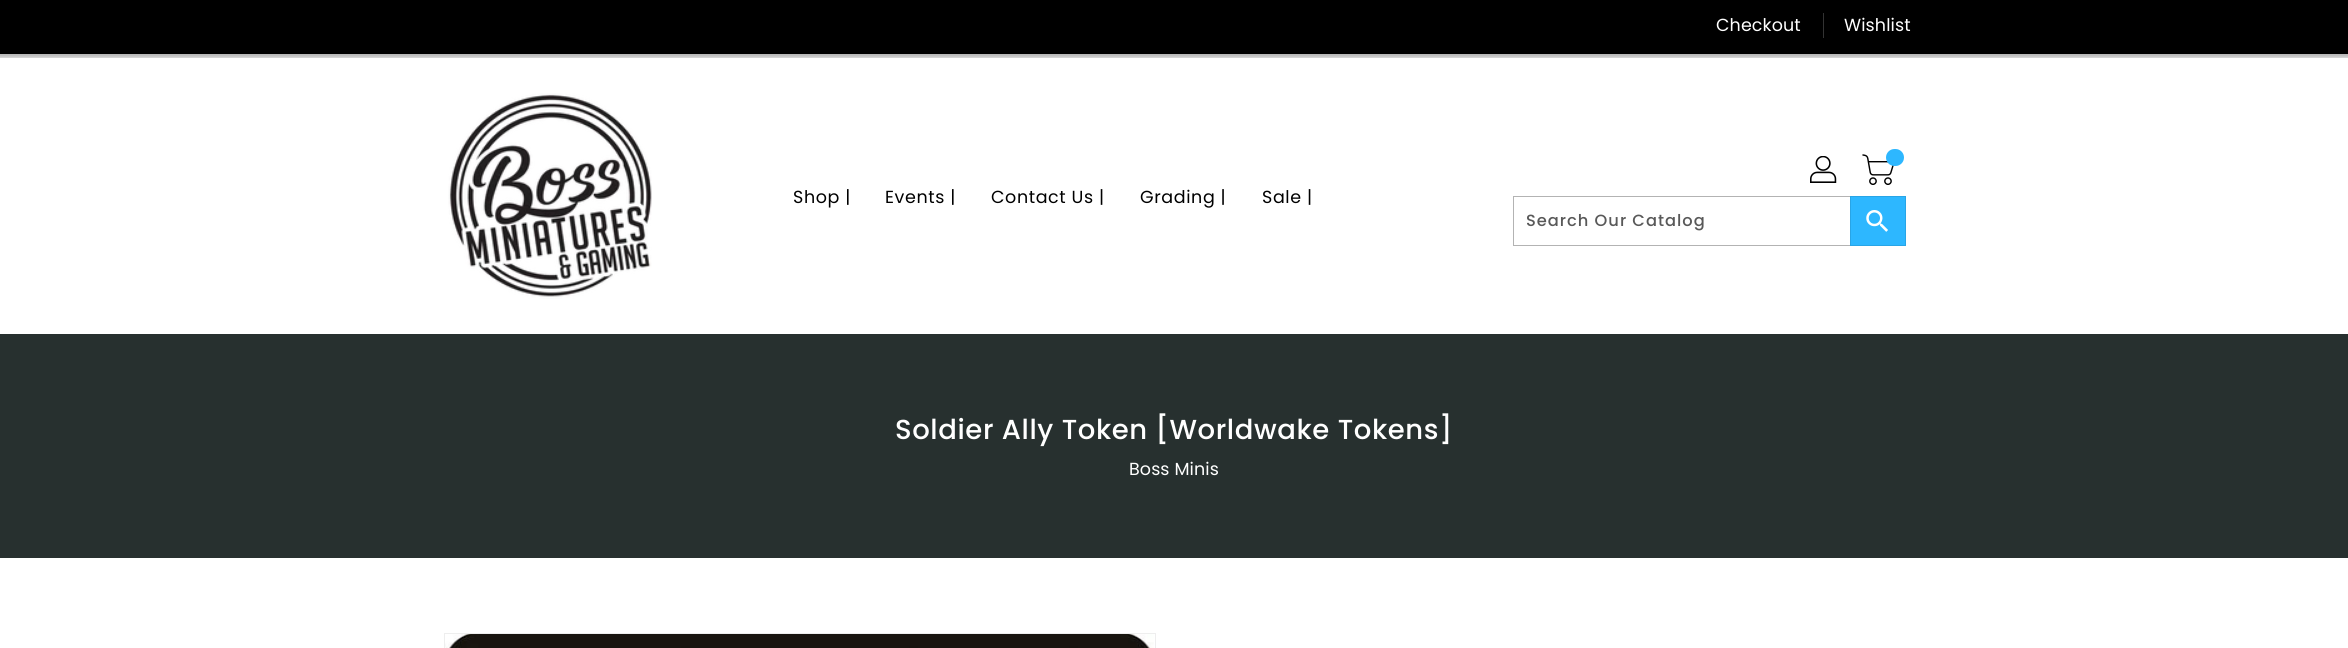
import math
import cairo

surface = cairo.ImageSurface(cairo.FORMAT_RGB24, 2348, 648)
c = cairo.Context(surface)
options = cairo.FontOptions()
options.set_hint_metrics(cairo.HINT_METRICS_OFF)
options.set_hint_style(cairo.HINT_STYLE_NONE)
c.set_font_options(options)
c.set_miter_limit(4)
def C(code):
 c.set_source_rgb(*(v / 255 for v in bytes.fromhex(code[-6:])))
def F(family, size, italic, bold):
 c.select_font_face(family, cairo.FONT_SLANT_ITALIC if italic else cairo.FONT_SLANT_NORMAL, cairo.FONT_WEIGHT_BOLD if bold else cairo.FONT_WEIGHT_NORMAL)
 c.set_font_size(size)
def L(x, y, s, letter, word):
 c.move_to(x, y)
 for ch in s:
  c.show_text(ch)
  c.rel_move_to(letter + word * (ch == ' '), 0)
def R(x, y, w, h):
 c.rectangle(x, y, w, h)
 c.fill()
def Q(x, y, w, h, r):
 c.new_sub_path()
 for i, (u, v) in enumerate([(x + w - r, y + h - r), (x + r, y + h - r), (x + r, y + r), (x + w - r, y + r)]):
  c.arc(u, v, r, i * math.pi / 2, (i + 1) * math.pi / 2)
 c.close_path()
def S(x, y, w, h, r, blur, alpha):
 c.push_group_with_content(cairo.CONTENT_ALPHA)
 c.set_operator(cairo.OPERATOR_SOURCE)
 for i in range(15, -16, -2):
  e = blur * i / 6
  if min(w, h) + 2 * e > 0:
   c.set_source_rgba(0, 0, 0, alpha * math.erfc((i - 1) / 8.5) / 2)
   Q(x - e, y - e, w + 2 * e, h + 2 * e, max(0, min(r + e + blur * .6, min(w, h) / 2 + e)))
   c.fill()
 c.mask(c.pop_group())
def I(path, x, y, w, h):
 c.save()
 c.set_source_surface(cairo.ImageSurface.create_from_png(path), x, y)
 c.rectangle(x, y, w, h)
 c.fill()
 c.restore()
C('ffffff')
c.paint()
C('000000')
S(-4,-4,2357,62,0,2.5,.3)
C('000000')
R(0,0,2348,54)
F('Poppins',17.5,0,0)
C('ffffff')
L(1716,31,'Checkout',.1,0)
C('333333')
R(1823,13,1,25)
C('ffffff')
L(1844,31,'Wishlist',.1,0)
R(0,58,2348,5)
I('1.png',448,93,204,206)
C('000000')
L(793,203,'Shop |',.6,0)
L(885,203,'Events |',.6,0)
L(991,203,'Contact Us |',.6,0)
L(1140,203,'Grading |',.6,0)
L(1262,203,'Sale |',.6,0)
I('2.png',1810,156,27,27)
I('3.png',1862,154,32,31)
C('2db7ff')
Q(1886,149,18,17,8.5)
c.fill()
c.rectangle(1513.5,196.5,392,49)
C('b3b3b3')
c.set_line_width(1)
c.stroke()
F('Poppins Medium',16.25,0,0)
C('595959')
L(1526,226,'Search Our Catalog',1,0)
C('2db7ff')
c.rectangle(1850.5,196.5,55,49)
c.fill_preserve()
C('29a5e6')
c.stroke()
I('4.png',1866,210,22,22)
C('27302f')
R(0,334,2348,224)
F('Poppins Medium',27.5,0,0)
C('ffffff')
L(895,439,'Soldier Ally Token [Worldwake Tokens]',.6,0)
F('Poppins',17.5,0,0)
L(1129,475,'Boss Minis',.1,0)
c.rectangle(444.5,633.5,711,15)
C('eeeeee')
c.stroke()
I('5.png',445,634,709,14)
surface.write_to_png('o.png')
